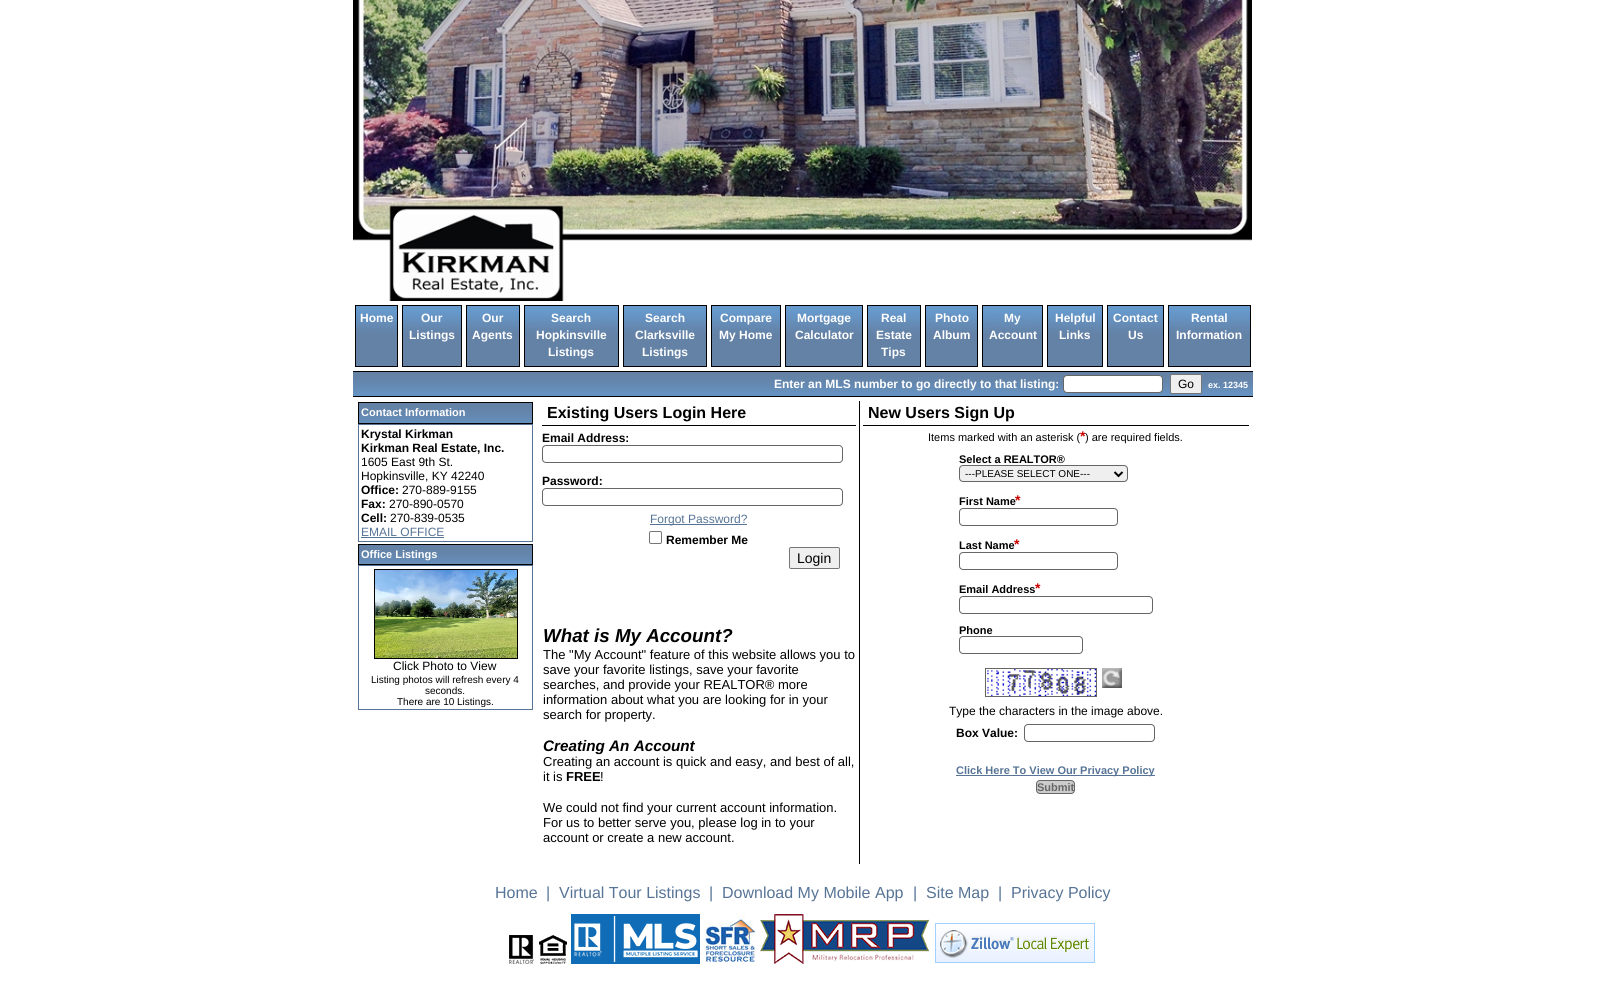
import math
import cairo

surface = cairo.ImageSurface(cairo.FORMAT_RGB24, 1605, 982)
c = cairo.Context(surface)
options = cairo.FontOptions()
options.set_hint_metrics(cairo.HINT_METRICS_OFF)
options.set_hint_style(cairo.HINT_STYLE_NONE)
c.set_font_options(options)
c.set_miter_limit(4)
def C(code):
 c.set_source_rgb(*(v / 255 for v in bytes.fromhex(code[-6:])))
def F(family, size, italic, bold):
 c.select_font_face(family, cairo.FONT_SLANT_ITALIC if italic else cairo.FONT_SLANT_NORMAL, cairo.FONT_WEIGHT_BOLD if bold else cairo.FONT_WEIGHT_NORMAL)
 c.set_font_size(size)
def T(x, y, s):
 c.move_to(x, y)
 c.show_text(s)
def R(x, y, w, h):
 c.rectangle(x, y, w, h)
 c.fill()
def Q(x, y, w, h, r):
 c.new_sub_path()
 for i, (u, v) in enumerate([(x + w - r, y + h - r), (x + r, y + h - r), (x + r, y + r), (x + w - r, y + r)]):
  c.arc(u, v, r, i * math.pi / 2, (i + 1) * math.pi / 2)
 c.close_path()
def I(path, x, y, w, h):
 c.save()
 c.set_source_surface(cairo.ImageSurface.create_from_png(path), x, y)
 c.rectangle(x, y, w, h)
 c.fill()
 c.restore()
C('ffffff')
c.paint()
I('1.png',353,0,899,301)
I('2.png',356,306,41,60)
c.rectangle(355.5,305.5,42,61)
C('000000')
c.set_line_width(1)
c.stroke()
F('Liberation Sans',12,0,1)
C('ffffff')
T(360,322,'Home')
I('3.png',403,306,58,60)
c.rectangle(402.5,305.5,59,61)
C('000000')
c.stroke()
C('ffffff')
T(421,322,'Our')
T(409,339,'Listings')
I('4.png',467,306,52,60)
c.rectangle(466.5,305.5,53,61)
C('000000')
c.stroke()
C('ffffff')
T(482,322,'Our')
T(472,339,'Agents')
I('5.png',525,306,93,60)
c.rectangle(524.5,305.5,94,61)
C('000000')
c.stroke()
C('ffffff')
T(551,322,'Search')
T(536,339,'Hopkinsville')
T(548,356,'Listings')
I('6.png',624,306,82,60)
c.rectangle(623.5,305.5,83,61)
C('000000')
c.stroke()
C('ffffff')
T(645,322,'Search')
T(635,339,'Clarksville')
T(642,356,'Listings')
I('7.png',712,306,68,60)
c.rectangle(711.5,305.5,69,61)
C('000000')
c.stroke()
C('ffffff')
T(720,322,'Compare')
T(719,339,'My Home')
I('8.png',786,306,76,60)
c.rectangle(785.5,305.5,77,61)
C('000000')
c.stroke()
C('ffffff')
T(797,322,'Mortgage')
T(795,339,'Calculator')
I('9.png',868,306,52,60)
c.rectangle(867.5,305.5,53,61)
C('000000')
c.stroke()
C('ffffff')
T(881,322,'Real')
T(876,339,'Estate')
T(881,356,'Tips')
I('10.png',926,306,51,60)
c.rectangle(925.5,305.5,52,61)
C('000000')
c.stroke()
C('ffffff')
T(935,322,'Photo')
T(933,339,'Album')
I('11.png',983,306,59,60)
c.rectangle(982.5,305.5,60,61)
C('000000')
c.stroke()
C('ffffff')
T(1004,322,'My')
T(989,339,'Account')
I('12.png',1048,306,54,60)
c.rectangle(1047.5,305.5,55,61)
C('000000')
c.stroke()
C('ffffff')
T(1055,322,'Helpful')
T(1059,339,'Links')
I('13.png',1108,306,55,60)
c.rectangle(1107.5,305.5,56,61)
C('000000')
c.stroke()
C('ffffff')
T(1113,322,'Contact')
T(1128,339,'Us')
I('14.png',1169,306,81,60)
c.rectangle(1168.5,305.5,82,61)
C('000000')
c.stroke()
C('ffffff')
T(1191,322,'Rental')
T(1176,339,'Information')
I('15.png',353,372,900,24)
C('000000')
R(353,371,900,1)
R(353,396,900,1)
C('ffffff')
T(774,388,'Enter an MLS number to go directly to that listing:')
Q(1063.5,375.5,99,17,3.5)
c.fill_preserve()
C('666666')
c.stroke()
C('efefef')
Q(1170.5,374.5,31,19,1.5)
c.fill_preserve()
C('767676')
c.stroke()
F('Liberation Sans',12,0,0)
C('000000')
T(1178,388,'Go')
F('Liberation Sans',9,0,1)
C('ffffff')
T(1208,388,'ex. 12345')
I('16.png',359,403,173,20)
c.rectangle(358.5,402.5,174,21)
C('000000')
c.stroke()
F('Liberation Sans',11,0,1)
C('ffffff')
T(361,416,'Contact Information')
c.rectangle(358.5,424.5,174,117)
C('577496')
c.stroke()
F('Liberation Sans',12,0,1)
C('000000')
T(361,438,'Krystal Kirkman')
T(361,452,'Kirkman Real Estate, Inc.')
F('Liberation Sans',12,0,0)
T(361,466,'1605 East 9th St.')
T(361,480,'Hopkinsville, KY 42240')
F('Liberation Sans',12,0,1)
T(361,494,'Office:')
F('Liberation Sans',12,0,0)
T(402,494,'270-889-9155')
F('Liberation Sans',12,0,1)
T(361,508,'Fax:')
F('Liberation Sans',12,0,0)
T(389,508,'270-890-0570')
F('Liberation Sans',12,0,1)
T(361,522,'Cell:')
F('Liberation Sans',12,0,0)
T(390,522,'270-839-0535')
C('577496')
T(361,536,'EMAIL OFFICE')
R(361,537,83,1)
I('17.png',359,545,173,19)
c.rectangle(358.5,544.5,174,20)
C('000000')
c.stroke()
F('Liberation Sans',11,0,1)
C('ffffff')
T(361,558,'Office Listings')
c.rectangle(358.5,565.5,174,144)
C('577496')
c.stroke()
c.rectangle(374.5,569.5,143,89)
C('000000')
c.stroke()
I('18.png',375,570,142,88)
F('Liberation Sans',12,0,0)
T(393,670,'Click Photo to View')
F('Liberation Sans',10,0,0)
T(371,683,'Listing photos will refresh every 4')
T(425,694,'seconds.')
T(397,705,'There are 10 Listings.')
R(859,401,1,463)
R(542,425,314,1)
F('Liberation Sans',16,0,1)
T(547,418,'Existing Users Login Here')
F('Liberation Sans',12,0,1)
T(542,442,'Email Address:')
Q(542.5,445.5,300,17,3.5)
C('666666')
c.stroke()
C('000000')
T(542,485,'Password:')
Q(542.5,488.5,300,17,3.5)
C('666666')
c.stroke()
C('577496')
R(650,524,97,1)
F('Liberation Sans',12,0,0)
T(650,523,'Forgot Password?')
Q(649.5,531.5,12,12,1.5)
C('767676')
c.stroke()
F('Liberation Sans',12,0,1)
C('000000')
T(666,544,'Remember Me')
C('efefef')
Q(789.5,547.5,50,21,1.5)
c.fill_preserve()
C('767676')
c.stroke()
F('Liberation Sans',14,0,0)
C('000000')
T(797,563,'Login')
F('Liberation Sans',18.75,1,1)
T(543,642,'What is My Account?')
F('Liberation Sans',13,0,0)
T(543,659,'The "My Account" feature of this website allows you to')
T(543,674,'save your favorite listings, save your favorite')
T(543,689,'searches, and provide your REALTOR® more')
T(543,704,'information about what you are looking for in your')
T(543,719,'search for property.')
F('Liberation Sans',15.25,1,1)
T(543,751,'Creating An Account')
F('Liberation Sans',13,0,0)
T(543,766,'Creating an account is quick and easy, and best of all,')
T(543,781,'it is')
F('Liberation Sans',13,0,1)
T(566,781,'FREE')
F('Liberation Sans',13,0,0)
T(600,781,'!')
T(543,812,'We could not find your current account information.')
T(543,827,'For us to better serve you, please log in to your')
T(543,842,'account or create a new account.')
R(863,425,386,1)
F('Liberation Sans',16,0,1)
T(868,418,'New Users Sign Up')
F('Liberation Sans',11,0,0)
T(928,441,'Items marked with an asterisk (')
F('Liberation Sans',14,0,1)
C('cc0000')
T(1080,441,'*')
F('Liberation Sans',11,0,0)
C('000000')
T(1085,441,') are required fields.')
F('Liberation Sans',11,0,1)
T(959,463,'Select a REALTOR®')
C('efefef')
Q(959.5,465.5,168,16,3.5)
c.fill_preserve()
C('666666')
c.stroke()
c.new_path()
c.move_to(1114.5,472)
c.line_to(1118.5,476)
c.line_to(1122.5,472)
C('000000')
c.set_line_width(2)
c.stroke()
F('Liberation Sans',10,0,0)
T(965,477,'---PLEASE SELECT ONE---')
F('Liberation Sans',11,0,1)
T(959,505,'First Name')
F('Liberation Sans',14,0,1)
C('cc0000')
T(1015,505,'*')
Q(959.5,508.5,158,17,3.5)
C('666666')
c.set_line_width(1)
c.stroke()
F('Liberation Sans',11,0,1)
C('000000')
T(959,549,'Last Name')
F('Liberation Sans',14,0,1)
C('cc0000')
T(1014,549,'*')
Q(959.5,552.5,158,17,3.5)
C('666666')
c.stroke()
F('Liberation Sans',11,0,1)
C('000000')
T(959,593,'Email Address')
F('Liberation Sans',14,0,1)
C('cc0000')
T(1035,593,'*')
Q(959.5,596.5,193,17,3.5)
C('666666')
c.stroke()
F('Liberation Sans',11,0,1)
C('000000')
T(959,634,'Phone')
Q(959.5,636.5,123,17,3.5)
C('666666')
c.stroke()
c.rectangle(985.5,668.5,111,28)
c.stroke()
I('19.png',1102,668,20,20)
I('20.png',987,669,109,27)
F('Liberation Sans',12,0,0)
C('000000')
T(949,715,'Type the characters in the image above.')
F('Liberation Sans',12,0,1)
T(956,737,'Box Value:')
Q(1024.5,724.5,130,17,3.5)
C('666666')
c.stroke()
C('577496')
R(956,775,199,1)
F('Liberation Sans',11,0,1)
T(956,774,'Click Here To View Our Privacy Policy')
C('cccccc')
Q(1036.5,780.5,38,13,3.5)
c.fill_preserve()
C('666666')
c.stroke()
T(1037,791,'Submit')
F('Liberation Sans',16,0,0)
C('577496')
T(495,898,'Home')
T(546,898,'|')
T(559,898,'Virtual Tour Listings')
T(709,898,'|')
T(722,898,'Download My Mobile App')
T(913,898,'|')
T(926,898,'Site Map')
T(998,898,'|')
T(1011,898,'Privacy Policy')
I('21.png',509,935,25,29)
I('22.png',539,935,28,29)
I('23.png',571,914,129,50)
I('24.png',705,914,51,48)
I('25.png',760,914,169,50)
I('26.png',935,923,160,40)
surface.write_to_png('o.png')
